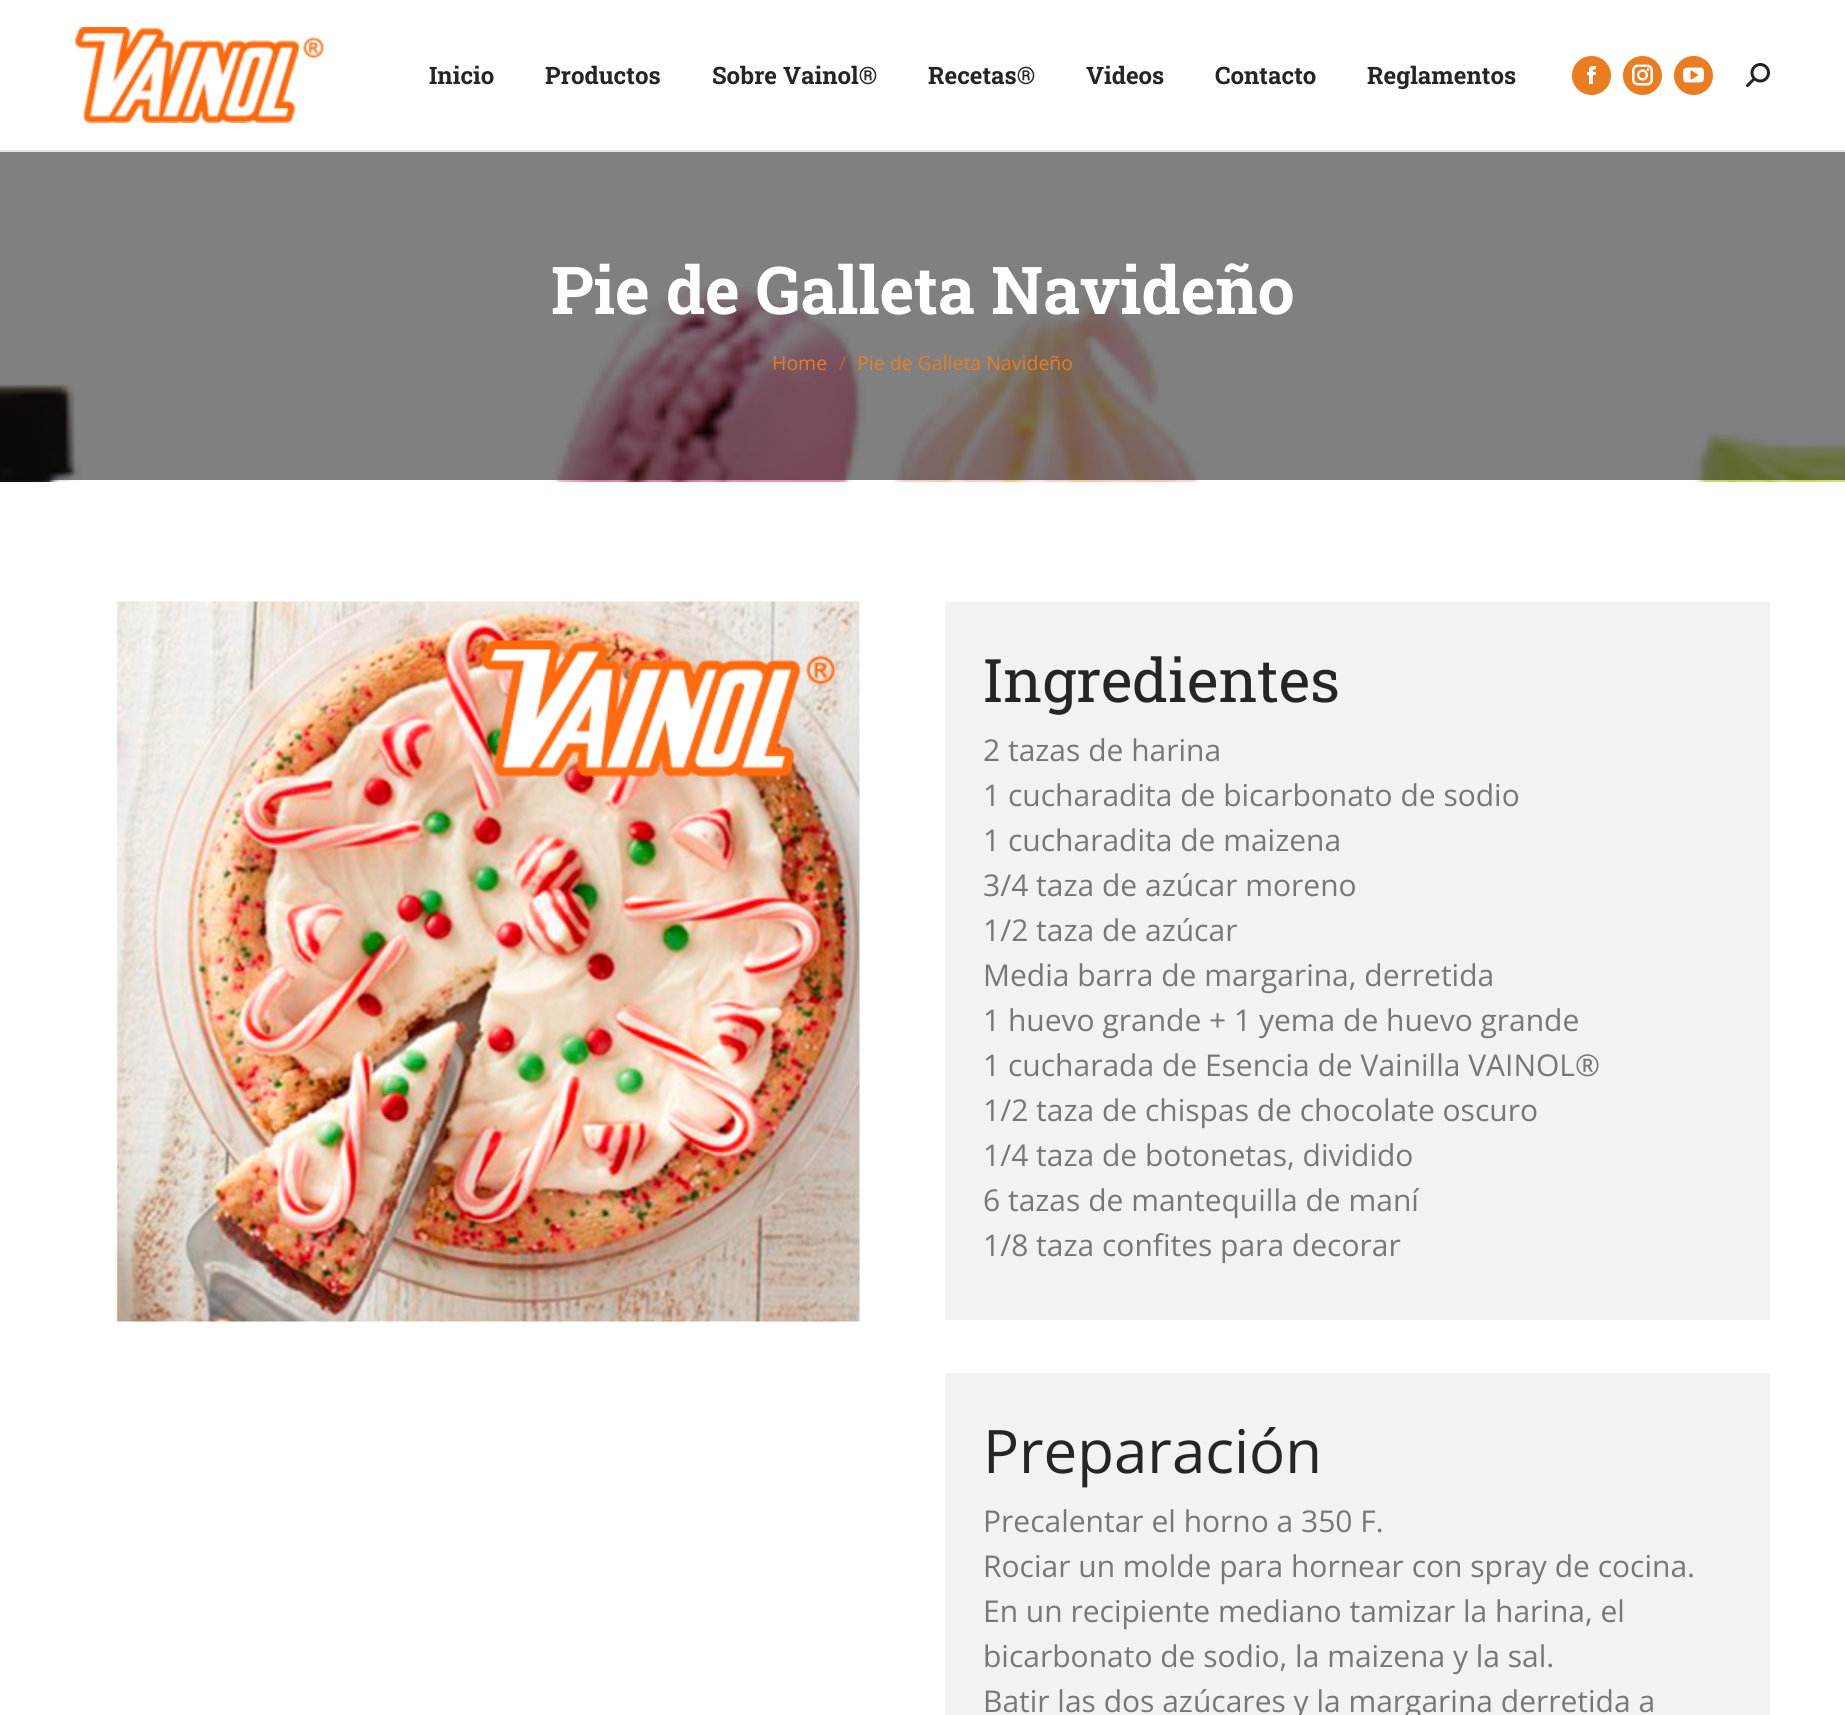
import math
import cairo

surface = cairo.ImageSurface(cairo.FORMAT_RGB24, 1845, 1715)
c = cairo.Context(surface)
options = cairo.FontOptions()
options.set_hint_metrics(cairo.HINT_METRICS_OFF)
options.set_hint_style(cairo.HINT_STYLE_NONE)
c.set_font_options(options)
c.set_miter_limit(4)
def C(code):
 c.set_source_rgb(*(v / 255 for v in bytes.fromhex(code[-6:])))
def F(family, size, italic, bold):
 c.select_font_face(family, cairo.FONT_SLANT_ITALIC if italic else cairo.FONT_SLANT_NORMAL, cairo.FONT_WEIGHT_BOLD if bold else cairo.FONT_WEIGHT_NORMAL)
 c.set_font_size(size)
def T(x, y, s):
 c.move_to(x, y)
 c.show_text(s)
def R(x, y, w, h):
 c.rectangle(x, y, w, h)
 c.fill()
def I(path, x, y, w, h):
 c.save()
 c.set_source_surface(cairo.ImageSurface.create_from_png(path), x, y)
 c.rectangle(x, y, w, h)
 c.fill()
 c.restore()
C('ffffff')
c.paint()
C('e4e4e4')
R(0,150,1845,2)
I('1.png',75,27,249,96)
F('Roboto Slab',24,0,1)
C('252525')
T(429,84,'Inicio')
T(545,84,'Productos')
T(712,84,'Sobre Vainol®')
T(928,84,'Recetas®')
T(1086,84,'Videos')
T(1215,84,'Contacto')
T(1367,84,'Reglamentos')
C('e97d1f')
c.new_path()
c.arc(1591.5,75.5,21,0,2 * math.pi)
c.fill_preserve()
C('ffffff')
c.set_line_width(3)
c.stroke()
I('2.png',1586,66,11,18)
C('e97d1f')
c.arc(1642.5,75.5,21,0,2 * math.pi)
c.fill_preserve()
C('ffffff')
c.stroke()
I('3.png',1632,64,21,22)
C('e97d1f')
c.arc(1693.5,75.5,21,0,2 * math.pi)
c.fill_preserve()
C('ffffff')
c.stroke()
I('4.png',1683,67,21,16)
I('5.png',1746,63,24,24)
I('6.png',0,152,1845,330)
F('Roboto Slab',66,0,1)
T(551,314,'Pie de Galleta Navideño')
F('Open Sans',19.5,0,0)
C('e97d1f')
T(772,370,'Home')
C('b0673e')
T(839,370,'/')
C('e97d1f')
T(857,370,'Pie de Galleta Navideño')
I('7.png',116,601,744,721)
C('f2f2f2')
R(945,602,825,718)
F('Roboto Slab',60,0,0)
C('252525')
T(983,702,'Ingredientes')
F('Open Sans',30,0,0)
C('777777')
T(983,761,'2 tazas de harina')
T(983,806,'1 cucharadita de bicarbonato de sodio')
T(983,851,'1 cucharadita de maizena')
T(983,896,'3/4 taza de azúcar moreno')
T(983,941,'1/2 taza de azúcar')
T(983,986,'Media barra de margarina, derretida')
T(983,1031,'1 huevo grande + 1 yema de huevo grande')
T(983,1076,'1 cucharada de Esencia de Vainilla VAINOL®')
T(983,1121,'1/2 taza de chispas de chocolate oscuro')
T(983,1166,'1/4 taza de botonetas, dividido')
T(983,1211,'6 tazas de mantequilla de maní')
T(983,1256,'1/8 taza confites para decorar')
C('f2f2f2')
R(945,1373,825,342)
F('Open Sans',60,0,0)
C('252525')
T(983,1473,'Preparación')
F('Open Sans',30,0,0)
C('777777')
T(983,1532,'Precalentar el horno a 350 F.')
T(983,1577,'Rociar un molde para hornear con spray de cocina.')
T(983,1622,'En un recipiente mediano tamizar la harina, el')
T(983,1667,'bicarbonato de sodio, la maizena y la sal.')
T(983,1712,'Batir las dos azúcares y la margarina derretida a')
surface.write_to_png('o.png')
